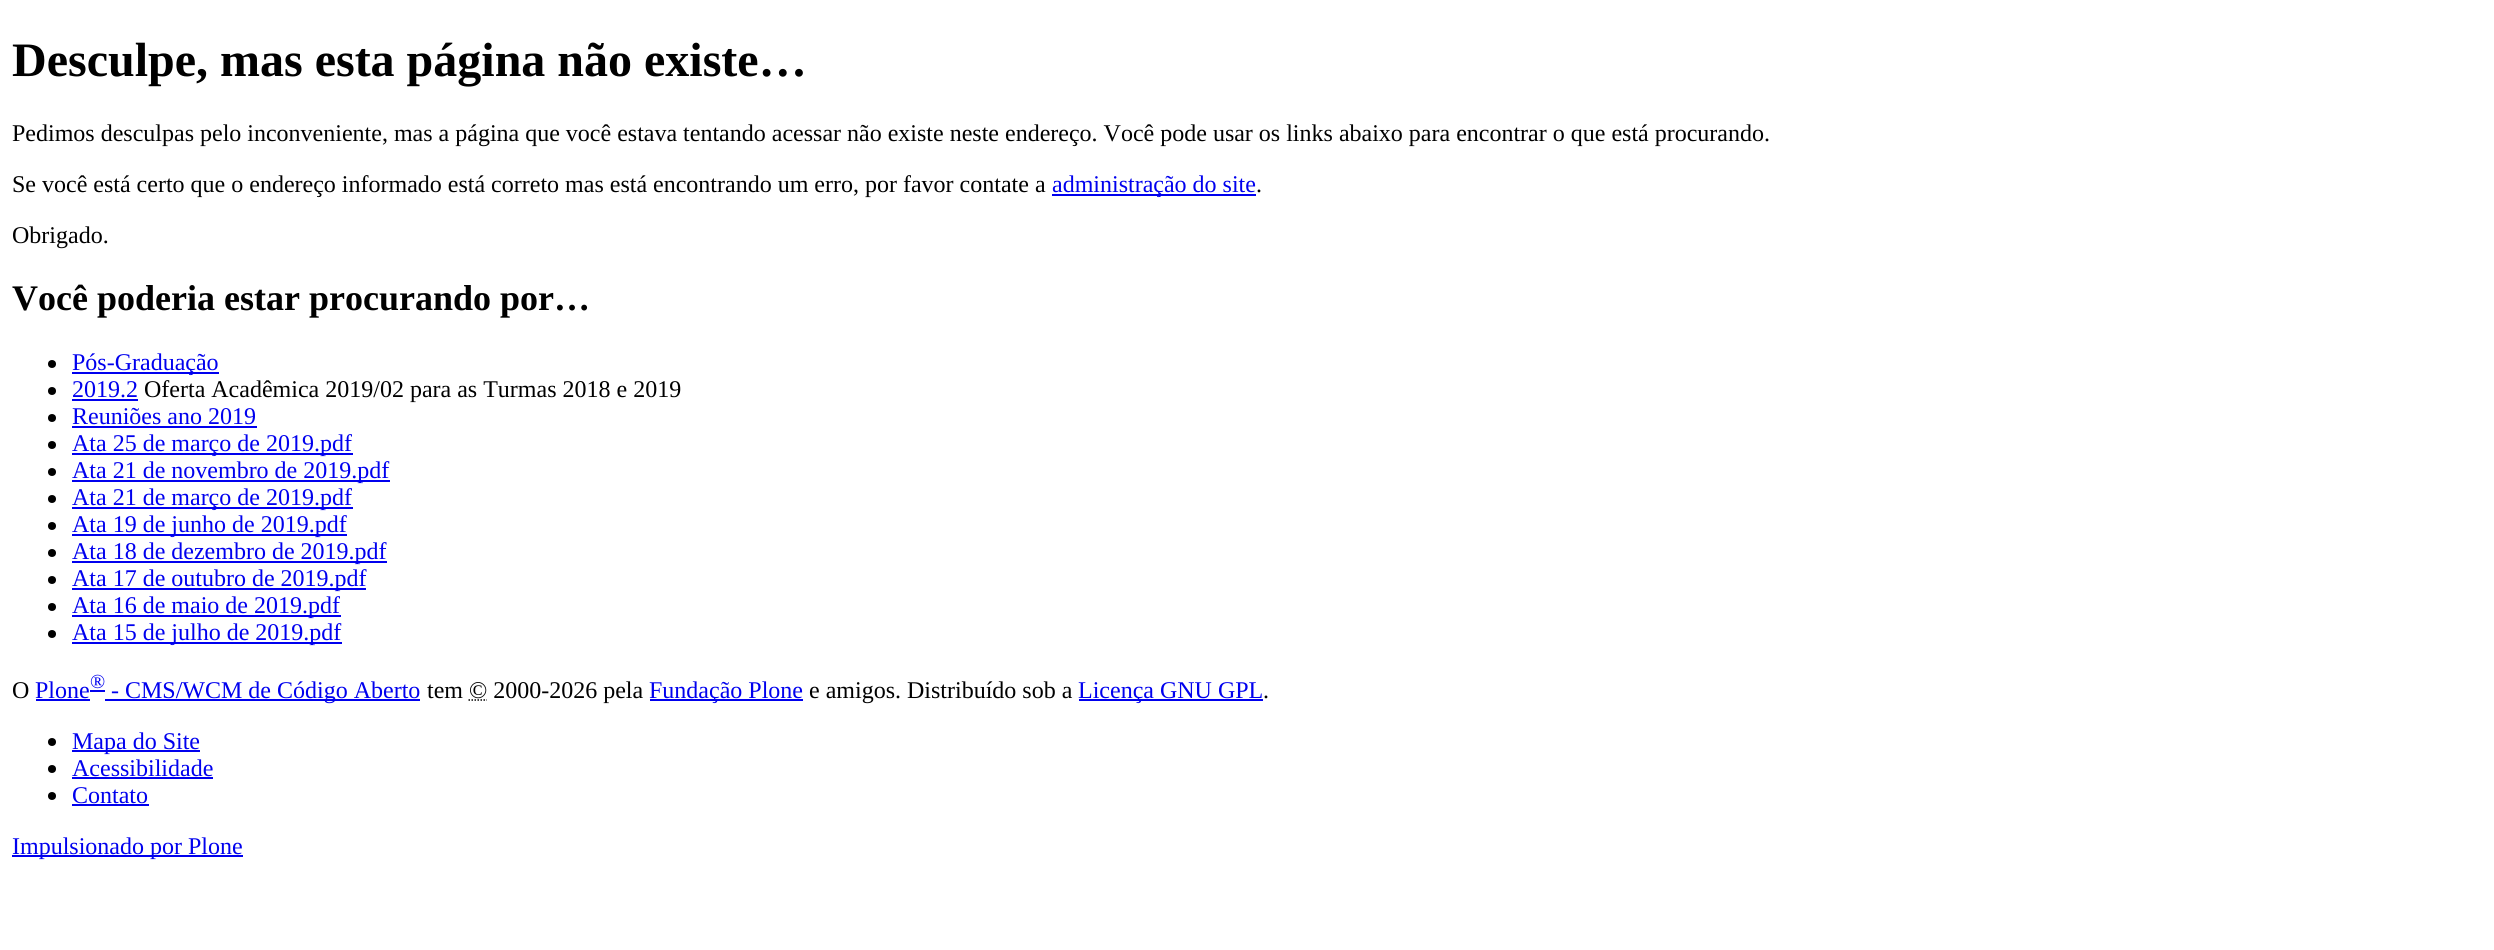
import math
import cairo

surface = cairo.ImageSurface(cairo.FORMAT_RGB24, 2494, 950)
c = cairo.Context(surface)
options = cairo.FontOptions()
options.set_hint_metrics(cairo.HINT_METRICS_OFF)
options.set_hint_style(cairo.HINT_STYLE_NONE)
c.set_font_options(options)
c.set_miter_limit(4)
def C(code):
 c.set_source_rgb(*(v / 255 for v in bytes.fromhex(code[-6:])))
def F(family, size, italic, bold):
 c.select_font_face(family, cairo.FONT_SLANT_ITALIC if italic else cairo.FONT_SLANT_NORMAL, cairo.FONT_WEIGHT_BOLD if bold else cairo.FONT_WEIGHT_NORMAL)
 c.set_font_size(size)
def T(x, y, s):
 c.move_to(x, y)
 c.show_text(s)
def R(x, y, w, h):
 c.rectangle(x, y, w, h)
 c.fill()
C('ffffff')
c.paint()
F('Liberation Serif',48,0,1)
C('000000')
T(12,76,'Desculpe, mas esta página não existe…')
F('Liberation Serif',24,0,0)
T(12,141,'Pedimos desculpas pelo inconveniente, mas a página que você estava tentando acessar não existe neste endereço. Você pode usar os links abaixo para encontrar o que está procurando.')
T(12,192,'Se você está certo que o endereço informado está correto mas está encontrando um erro, por favor contate a')
C('0000ee')
R(1052,194,204,2)
T(1052,192,'administração do site')
C('000000')
T(1256,192,'.')
T(12,243,'Obrigado.')
F('Liberation Serif',36,0,1)
T(12,310,'Você poderia estar procurando por…')
c.new_path()
c.arc(52,364,4,0,2 * math.pi)
c.fill()
C('0000ee')
R(72,372,147,2)
F('Liberation Serif',24,0,0)
T(72,370,'Pós-Graduação')
C('000000')
c.new_path()
c.arc(52,391,4,0,2 * math.pi)
c.fill()
C('0000ee')
T(72,397,'2019.2')
R(72,399,66,2)
C('000000')
T(144,397,'Oferta Acadêmica 2019/02 para as Turmas 2018 e 2019')
c.new_path()
c.arc(52,418,4,0,2 * math.pi)
c.fill()
C('0000ee')
T(72,424,'Reuniões ano 2019')
R(72,426,185,2)
C('000000')
c.new_path()
c.arc(52,445,4,0,2 * math.pi)
c.fill()
C('0000ee')
R(72,453,281,2)
T(72,451,'Ata 25 de março de 2019.pdf')
C('000000')
c.new_path()
c.arc(52,472,4,0,2 * math.pi)
c.fill()
C('0000ee')
R(72,480,318,2)
T(72,478,'Ata 21 de novembro de 2019.pdf')
C('000000')
c.new_path()
c.arc(52,499,4,0,2 * math.pi)
c.fill()
C('0000ee')
R(72,507,281,2)
T(72,505,'Ata 21 de março de 2019.pdf')
C('000000')
c.new_path()
c.arc(52,526,4,0,2 * math.pi)
c.fill()
C('0000ee')
R(72,534,275,2)
T(72,532,'Ata 19 de junho de 2019.pdf')
C('000000')
c.new_path()
c.arc(52,553,4,0,2 * math.pi)
c.fill()
C('0000ee')
R(72,561,315,2)
T(72,559,'Ata 18 de dezembro de 2019.pdf')
C('000000')
c.new_path()
c.arc(52,580,4,0,2 * math.pi)
c.fill()
C('0000ee')
R(72,588,294,2)
T(72,586,'Ata 17 de outubro de 2019.pdf')
C('000000')
c.new_path()
c.arc(52,607,4,0,2 * math.pi)
c.fill()
C('0000ee')
R(72,615,269,2)
T(72,613,'Ata 16 de maio de 2019.pdf')
C('000000')
c.new_path()
c.arc(52,634,4,0,2 * math.pi)
c.fill()
C('0000ee')
R(72,642,270,2)
T(72,640,'Ata 15 de julho de 2019.pdf')
C('000000')
T(12,698,'O')
C('0000ee')
T(35,698,'Plone')
R(36,699,54,2)
R(90,690,15,2)
F('Liberation Serif',20,0,0)
T(90,688,'®')
R(105,699,315,2)
F('Liberation Serif',24,0,0)
T(111,698,'- CMS/WCM de Código Aberto')
C('000000')
T(427,698,'tem © 2000-2026 pela')
C('0000ee')
R(650,699,153,2)
T(649,698,'Fundação Plone')
C('000000')
T(809,698,'e amigos. Distribuído sob a')
C('0000ee')
R(1079,699,184,2)
T(1078,698,'Licença GNU GPL')
C('000000')
T(1263,698,'.')
c.new_path()
c.move_to(468.5,700)
c.line_to(487,700)
c.set_line_width(1.5)
c.set_dash([1.5,1.5])
c.stroke()
c.arc(52,742,4,0,2 * math.pi)
c.fill()
C('0000ee')
R(72,750,128,2)
T(72,749,'Mapa do Site')
C('000000')
c.new_path()
c.arc(52,769,4,0,2 * math.pi)
c.fill()
C('0000ee')
T(72,776,'Acessibilidade')
R(72,777,141,2)
C('000000')
c.new_path()
c.arc(52,796,4,0,2 * math.pi)
c.fill()
C('0000ee')
T(72,803,'Contato')
R(72,804,77,2)
R(12,855,231,2)
T(12,854,'Impulsionado por Plone')
surface.write_to_png('o.png')
